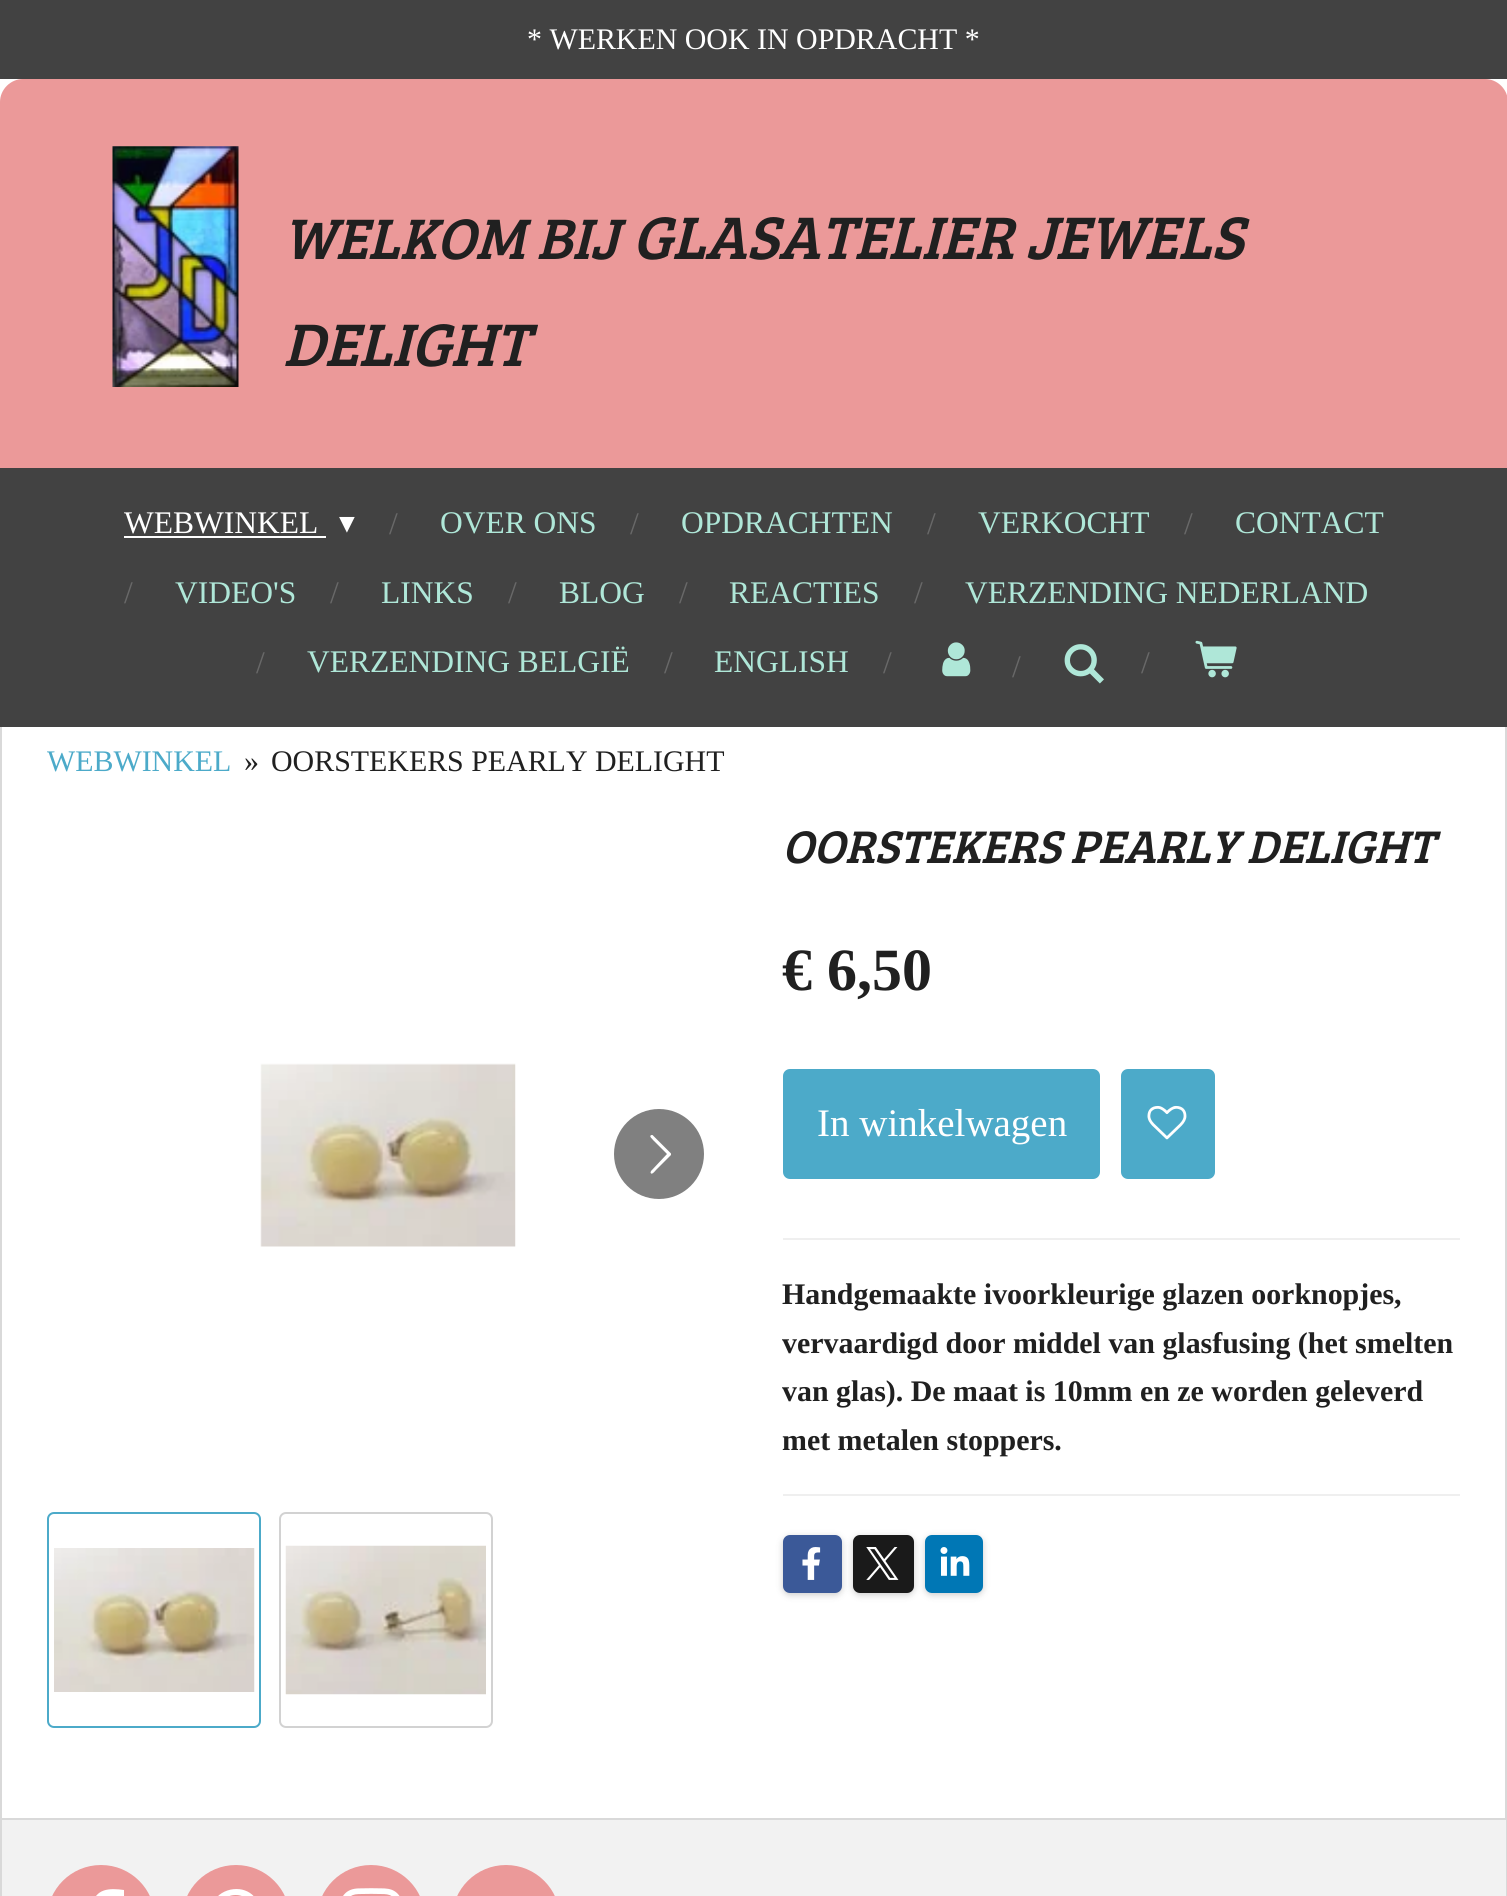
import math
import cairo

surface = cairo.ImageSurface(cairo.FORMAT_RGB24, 1507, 1896)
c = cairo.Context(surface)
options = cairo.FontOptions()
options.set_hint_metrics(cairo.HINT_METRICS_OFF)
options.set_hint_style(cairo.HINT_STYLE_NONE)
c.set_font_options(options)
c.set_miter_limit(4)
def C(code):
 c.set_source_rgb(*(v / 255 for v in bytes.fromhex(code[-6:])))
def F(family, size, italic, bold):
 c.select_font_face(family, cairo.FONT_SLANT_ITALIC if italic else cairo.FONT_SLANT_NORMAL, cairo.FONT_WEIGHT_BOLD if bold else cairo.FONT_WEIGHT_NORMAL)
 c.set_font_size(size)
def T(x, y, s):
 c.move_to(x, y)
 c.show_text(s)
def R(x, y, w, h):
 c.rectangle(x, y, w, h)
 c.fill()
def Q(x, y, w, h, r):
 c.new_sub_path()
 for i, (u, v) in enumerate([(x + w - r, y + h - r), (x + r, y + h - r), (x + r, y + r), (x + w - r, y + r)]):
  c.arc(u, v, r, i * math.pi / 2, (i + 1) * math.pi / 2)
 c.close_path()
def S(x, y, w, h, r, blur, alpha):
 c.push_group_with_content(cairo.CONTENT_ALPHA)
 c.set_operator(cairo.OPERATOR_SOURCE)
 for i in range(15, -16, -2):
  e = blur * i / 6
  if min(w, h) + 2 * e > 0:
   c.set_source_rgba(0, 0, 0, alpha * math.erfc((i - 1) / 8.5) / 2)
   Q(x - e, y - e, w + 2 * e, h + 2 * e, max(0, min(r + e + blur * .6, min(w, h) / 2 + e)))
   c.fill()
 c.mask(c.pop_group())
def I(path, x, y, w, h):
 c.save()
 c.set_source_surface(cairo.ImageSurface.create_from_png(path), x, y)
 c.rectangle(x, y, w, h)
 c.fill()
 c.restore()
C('ffffff')
c.paint()
C('424242')
R(0,0,1507,79)
F('Liberation Serif',29.9,0,0)
C('ffffff')
T(527,49,'* WERKEN OOK IN OPDRACHT *')
C('eb9999')
c.new_path()
c.move_to(23,79)
c.line_to(1485,79)
c.curve_to(1497.5,79,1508,89.5,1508,102)
c.line_to(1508,468)
c.line_to(0,468)
c.line_to(0,102)
c.curve_to(0,89.5,10.5,79,23,79)
c.close_path()
c.fill()
I('1.png',112,146,127,241)
F('Bree Serif',59,1,0)
C('202020')
T(283,259,'WELKOM BIJ')
F('Bree Serif',62,1,0)
T(632,259,'GLASATELIER JEWELS')
T(283,366,'DELIGHT')
C('424242')
R(0,468,1507,259)
F('Liberation Serif',31.5,0,0)
C('ffffff')
T(124,533,'WEBWINKEL')
R(124,536,202,2)
F('DejaVu Sans',31.5,0,0)
T(339,533,'▾')
F('Liberation Serif',31.5,0,0)
C('686868')
T(389,534,'/')
C('afe7d8')
T(440,533,'OVER ONS')
C('686868')
T(630,534,'/')
C('afe7d8')
T(681,533,'OPDRACHTEN')
C('686868')
T(927,534,'/')
C('afe7d8')
T(978,533,'VERKOCHT')
C('686868')
T(1184,534,'/')
C('afe7d8')
T(1235,533,'CONTACT')
C('686868')
T(124,603,'/')
C('afe7d8')
T(175,603,'VIDEO\'S')
C('686868')
T(330,603,'/')
C('afe7d8')
T(381,603,'LINKS')
C('686868')
T(508,603,'/')
C('afe7d8')
T(559,603,'BLOG')
C('686868')
T(679,603,'/')
C('afe7d8')
T(729,603,'REACTIES')
C('686868')
T(914,603,'/')
C('afe7d8')
T(965,603,'VERZENDING NEDERLAND')
C('686868')
T(256,673,'/')
C('afe7d8')
T(307,672,'VERZENDING BELGIË')
C('686868')
T(664,673,'/')
C('afe7d8')
T(714,672,'ENGLISH')
C('686868')
T(883,673,'/')
I('2.png',942,642,29,35)
T(1012,677,'/')
I('3.png',1064,644,40,40)
T(1141,673,'/')
I('4.png',1195,640,42,38)
C('d9d9d9')
R(1505,727,2,1091)
R(0,727,2,1091)
F('Liberation Serif',29.9,0,0)
C('4caac9')
T(47,771,'WEBWINKEL')
C('202020')
T(244,771,'»')
T(271,771,'OORSTEKERS PEARLY DELIGHT')
F('Bree Serif',47.25,1,0)
T(782,863,'OORSTEKERS PEARLY DELIGHT')
I('5.png',260,1063,256,184)
C('808080')
c.arc(659,1154,45,0,2 * math.pi)
c.fill()
C('ffffff')
c.new_path()
c.move_to(651,1171)
c.line_to(667,1154)
c.line_to(653.5,1140.5)
c.curve_to(653,1139.5,648,1136,651.5,1135)
c.line_to(652.5,1135)
c.line_to(671,1153.5)
c.line_to(671,1154)
c.line_to(671,1155)
c.line_to(656,1170)
c.curve_to(655.5,1170.5,651.5,1176,650.5,1172.5)
c.close_path()
c.fill()
Q(48,1513,212,214,6)
C('4caac9')
c.stroke()
I('6.png',54,1548,201,144)
Q(280,1513,212,214,6)
C('d2d2d2')
c.stroke()
I('7.png',285,1545,201,150)
F('Liberation Serif',60,0,1)
C('202020')
T(782,990,'€ 6,50')
C('4caac9')
Q(783,1069,317,110,7)
c.fill()
F('Liberation Serif',39,0,0)
C('ffffff')
T(817,1136,'In winkelwagen')
C('4caac9')
Q(1121,1069,94,110,7)
c.fill()
I('8.png',1147,1105,40,35)
C('efefef')
R(783,1238,677,2)
F('Liberation Serif',29.9,0,1)
C('202020')
T(782,1304,'Handgemaakte ivoorkleurige glazen oorknopjes,')
T(782,1353,'vervaardigd door middel van glasfusing (het smelten')
T(782,1401,'van glas). De maat is 10mm en ze worden geleverd')
T(782,1450,'met metalen stoppers.')
C('efefef')
R(783,1494,677,2)
C('000000')
S(783,1537,59,58,7,3.5,.2)
C('3b5998')
Q(783,1535,59,58,7)
c.fill()
I('9.png',802,1547,19,33)
C('000000')
S(853,1537,61,58,7,3.5,.2)
C('1a1a1a')
Q(853,1535,61,58,7)
c.fill()
I('10.png',866,1547,33,33)
C('000000')
S(925,1537,58,58,7,3.5,.2)
C('0077b5')
Q(925,1535,58,58,7)
c.fill()
I('11.png',940,1547,30,29)
C('f2f2f2')
c.rectangle(1,1819,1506,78)
c.fill_preserve()
C('d9d9d9')
c.stroke()
C('eb9999')
Q(47,1865,108,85,54)
c.fill()
C('ffffff')
c.new_path()
c.move_to(121,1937)
c.line_to(108,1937)
c.line_to(108,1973)
c.curve_to(103,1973,97,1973,92,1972)
c.line_to(92,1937)
c.line_to(78,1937)
c.line_to(78,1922)
c.line_to(92,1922)
c.line_to(92,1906)
c.curve_to(95,1888,110,1888,124,1890)
c.line_to(124,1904)
c.curve_to(107,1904,108,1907,108,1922)
c.line_to(123,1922)
c.close_path()
c.fill()
C('eb9999')
Q(182,1865,108,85,54)
c.fill()
I('12.png',218,1889,36,7)
Q(317,1865,108,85,54)
c.fill()
I('13.png',343,1888,57,8)
Q(452,1865,108,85,54)
c.fill()
surface.write_to_png('o.png')
